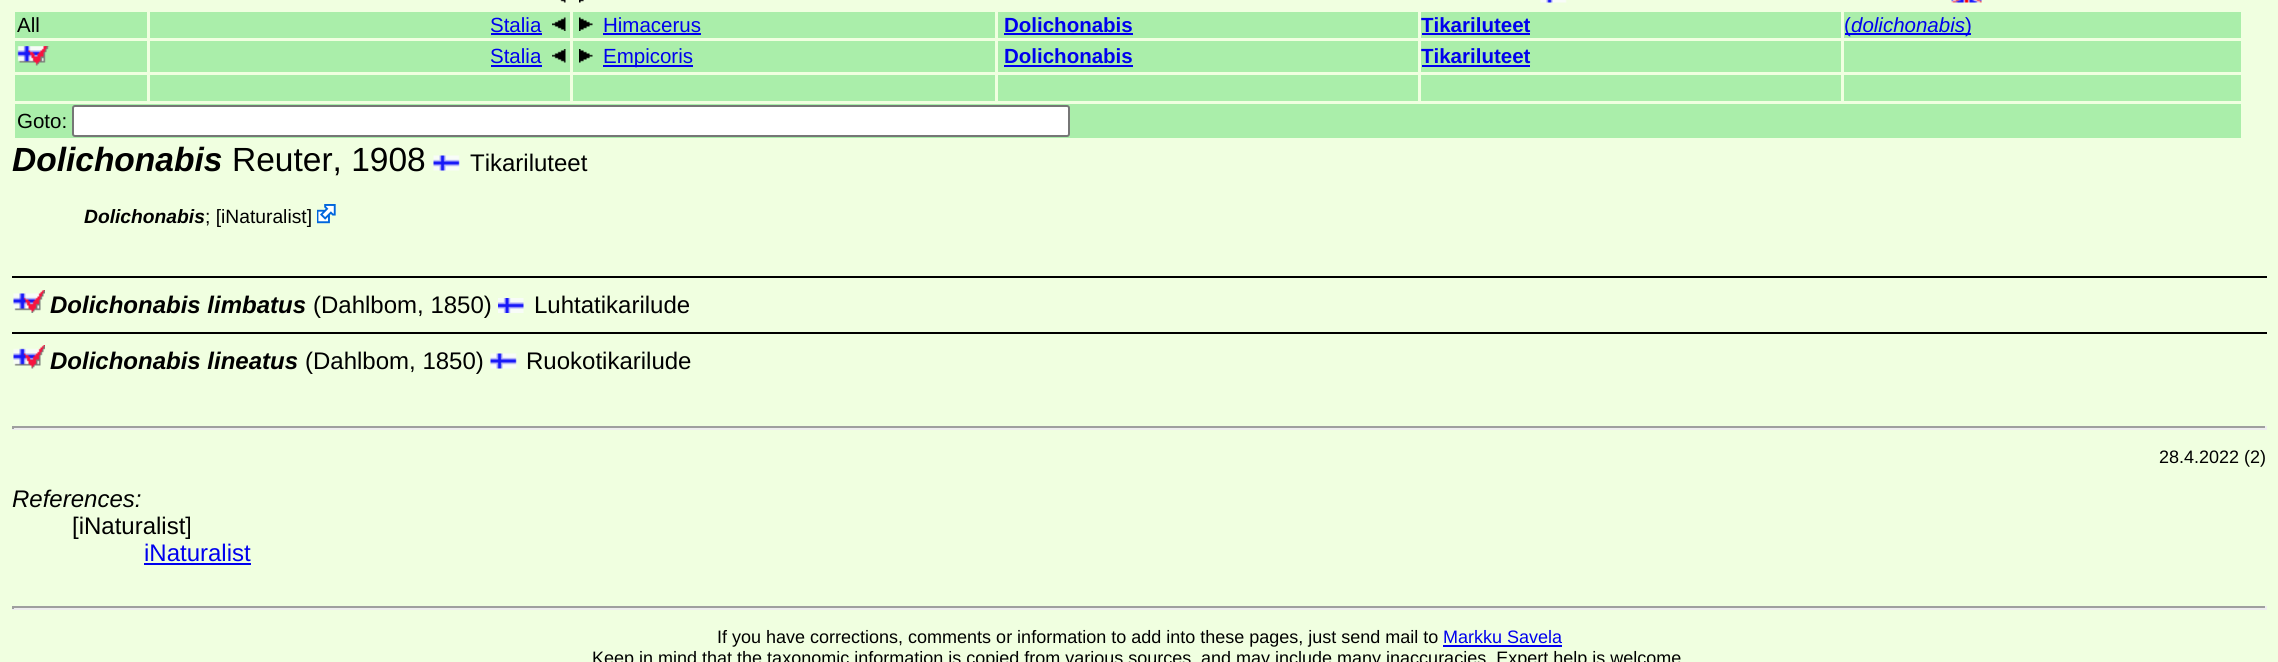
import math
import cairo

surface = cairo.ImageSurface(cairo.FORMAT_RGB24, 2278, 662)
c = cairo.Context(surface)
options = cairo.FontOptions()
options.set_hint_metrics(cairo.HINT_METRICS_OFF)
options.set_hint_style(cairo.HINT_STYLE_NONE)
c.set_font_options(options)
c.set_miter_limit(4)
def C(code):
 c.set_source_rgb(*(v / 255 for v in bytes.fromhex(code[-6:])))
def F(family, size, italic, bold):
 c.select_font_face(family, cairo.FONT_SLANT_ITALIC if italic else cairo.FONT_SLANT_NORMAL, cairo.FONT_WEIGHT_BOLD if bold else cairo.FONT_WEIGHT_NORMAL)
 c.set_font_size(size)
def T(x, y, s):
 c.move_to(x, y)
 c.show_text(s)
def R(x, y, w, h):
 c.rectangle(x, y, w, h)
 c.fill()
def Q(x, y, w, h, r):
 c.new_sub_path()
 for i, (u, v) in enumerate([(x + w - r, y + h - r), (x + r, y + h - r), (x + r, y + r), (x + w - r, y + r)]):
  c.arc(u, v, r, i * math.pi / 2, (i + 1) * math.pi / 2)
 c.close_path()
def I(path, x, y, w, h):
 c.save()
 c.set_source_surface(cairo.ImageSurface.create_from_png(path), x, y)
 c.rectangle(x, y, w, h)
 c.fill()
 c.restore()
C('f0ffe0')
c.paint()
I('1.png',560,0,6,3)
I('2.png',579,0,5,3)
I('3.png',1540,0,27,3)
I('4.png',1951,0,31,3)
C('aaeeaa')
R(15,12,132,26)
F('Liberation Sans',20.5,0,0)
C('000000')
T(17,32,'All')
C('aaeeaa')
R(150,12,420,26)
C('0000ee')
T(490,32,'Stalia')
R(491,33,51,2)
I('5.png',552,17,14,14)
C('aaeeaa')
R(573,12,422,26)
I('6.png',579,17,14,14)
C('0000ee')
T(603,32,'Himacerus')
R(603,33,98,2)
C('aaeeaa')
R(998,12,420,26)
F('Liberation Sans',20.5,0,1)
C('0000ee')
T(1004,32,'Dolichonabis')
R(1004,33,129,2)
C('aaeeaa')
R(1421,12,420,26)
C('0000ee')
T(1421,32,'Tikariluteet')
R(1422,33,108,2)
C('aaeeaa')
R(1844,12,397,26)
C('0000ee')
R(1845,33,6,2)
F('Liberation Sans',20.5,0,0)
T(1844,32,'(')
R(1851,33,120,2)
F('Liberation Sans',20.5,1,0)
T(1851,32,'dolichonabis')
F('Liberation Sans',20.5,0,0)
T(1965,32,')')
C('aaeeaa')
R(15,41,132,31)
I('7.png',17,46,33,20)
R(150,41,420,31)
C('0000ee')
T(490,63,'Stalia')
R(491,65,51,2)
I('8.png',552,49,14,14)
C('aaeeaa')
R(573,41,422,31)
I('9.png',579,49,14,14)
C('0000ee')
R(603,65,90,2)
T(603,63,'Empicoris')
C('aaeeaa')
R(998,41,420,31)
F('Liberation Sans',20.5,0,1)
C('0000ee')
T(1004,63,'Dolichonabis')
R(1004,65,129,2)
C('aaeeaa')
R(1421,41,420,31)
C('0000ee')
T(1421,63,'Tikariluteet')
R(1422,65,108,2)
C('aaeeaa')
R(1844,41,397,31)
R(15,75,132,26)
R(150,75,420,26)
R(573,75,422,26)
R(998,75,420,26)
R(1421,75,420,26)
R(1844,75,397,26)
R(15,104,2226,34)
F('Liberation Sans',20.5,0,0)
C('000000')
T(17,128,'Goto:')
C('ffffff')
Q(73,106,996,30,2)
c.fill_preserve()
C('767676')
c.stroke()
F('Liberation Sans',33.5,1,1)
C('000000')
T(12,171,'Dolichonabis')
F('Liberation Sans',33.5,0,0)
T(232,171,'Reuter, 1908')
I('10.png',433,155,27,16)
F('Liberation Sans',24,0,0)
T(470,171,'Tikariluteet')
F('Liberation Sans',19.25,1,1)
T(84,223,'Dolichonabis')
F('Liberation Sans',19.25,0,0)
T(205,223,'; [iNaturalist]')
I('11.png',317,204,19,20)
R(12,276,2255,2)
I('12.png',13,290,32,23)
F('Liberation Sans',24,1,1)
T(50,313,'Dolichonabis limbatus')
F('Liberation Sans',24,0,0)
T(313,313,'(Dahlbom, 1850)')
I('13.png',498,298,26,15)
T(534,313,'Luhtatikarilude')
R(12,332,2255,2)
I('14.png',13,345,32,24)
F('Liberation Sans',24,1,1)
T(50,369,'Dolichonabis lineatus')
F('Liberation Sans',24,0,0)
T(305,369,'(Dahlbom, 1850)')
I('15.png',490,353,27,16)
T(526,369,'Ruokotikarilude')
C('9f9f9f')
R(12,426,2255,2)
C('eeeeee')
R(2265,426,2,3)
R(12,428,2255,2)
C('9f9f9f')
R(12,426,2,3)
F('Liberation Sans',18,0,0)
C('000000')
T(2159,463,'28.4.2022 (2)')
F('Liberation Sans',24,1,0)
T(12,507,'References:')
F('Liberation Sans',24,0,0)
T(72,534,'[iNaturalist]')
C('0000ee')
T(144,561,'iNaturalist')
R(144,563,107,2)
C('9f9f9f')
R(12,606,2255,2)
C('eeeeee')
R(2265,606,2,3)
R(12,608,2255,2)
C('9f9f9f')
R(12,606,2,3)
F('Liberation Sans',18,0,0)
C('000000')
T(717,643,'If you have corrections, comments or information to add into these pages, just send mail to')
C('0000ee')
T(1443,643,'Markku Savela')
R(1443,645,119,2)
C('000000')
T(592,664,'Keep in mind that the taxonomic information is copied from various sources')
T(1201,664,'and may include many inaccuracies. Expert help is welcome')
surface.write_to_png('o.png')
